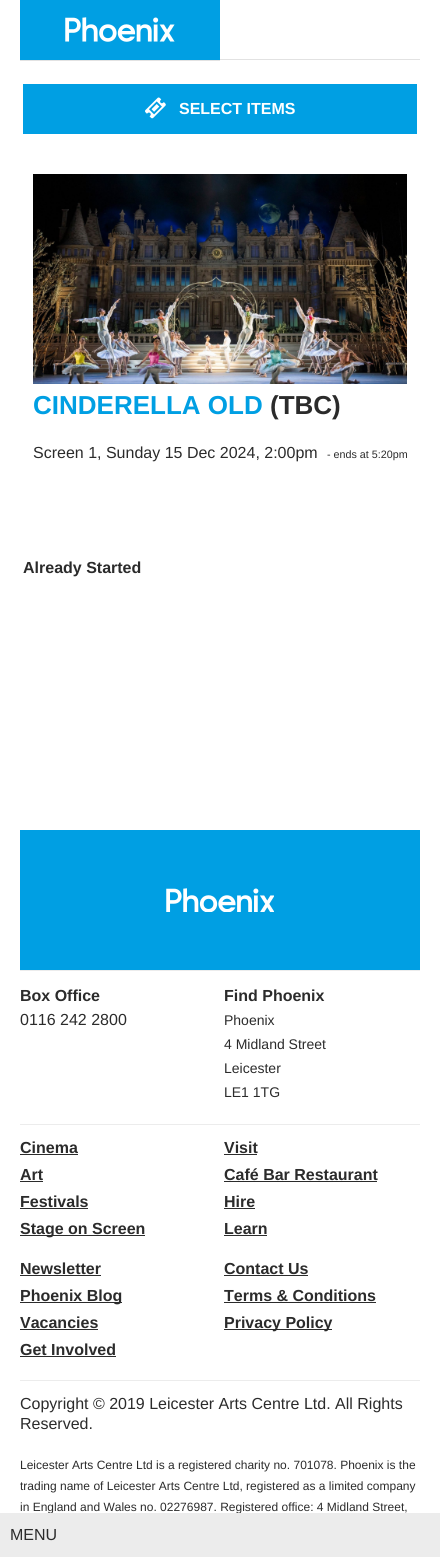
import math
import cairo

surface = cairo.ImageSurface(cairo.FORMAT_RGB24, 440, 1557)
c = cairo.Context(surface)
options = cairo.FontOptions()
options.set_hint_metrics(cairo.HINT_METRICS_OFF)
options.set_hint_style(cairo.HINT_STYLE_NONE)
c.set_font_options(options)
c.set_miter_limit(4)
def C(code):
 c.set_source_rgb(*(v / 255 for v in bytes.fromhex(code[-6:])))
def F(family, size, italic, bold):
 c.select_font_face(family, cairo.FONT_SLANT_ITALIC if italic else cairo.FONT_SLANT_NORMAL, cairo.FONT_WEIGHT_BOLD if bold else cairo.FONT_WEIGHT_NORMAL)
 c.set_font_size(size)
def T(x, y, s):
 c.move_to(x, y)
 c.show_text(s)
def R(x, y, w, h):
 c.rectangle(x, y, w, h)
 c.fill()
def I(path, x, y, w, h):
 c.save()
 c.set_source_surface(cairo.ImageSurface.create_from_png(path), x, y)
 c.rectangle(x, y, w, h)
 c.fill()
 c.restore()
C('ffffff')
c.paint()
C('e2e2e2')
R(20,60,200,1)
C('009fe3')
R(20,0,200,60)
I('1.png',65,17,110,25)
C('e2e2e2')
R(220,59,200,1)
C('009fe3')
R(23,84,394,50)
I('2.png',145,97,21,22)
F('Liberation Sans',16,0,1)
C('ffffff')
T(179,114,'SELECT ITEMS')
I('3.png',33,174,374,210)
F('Liberation Sans',26,0,1)
C('009fe3')
T(33,414,'CINDERELLA OLD')
C('2b2b2b')
T(270,414,'(TBC)')
F('Liberation Sans',16,0,0)
T(33,458,'Screen 1, Sunday 15 Dec 2024, 2:00pm')
F('Liberation Sans',10.75,0,0)
T(327,458,'- ends at 5:20pm')
F('Liberation Sans',16,0,1)
T(23,573,'Already Started')
F('Liberation Sans',12,0,0)
T(20,1511,'in England and Wales no. 02276987. Registered office: 4 Midland Street,')
C('ececec')
R(0,1513,440,44)
F('Liberation Sans',16,0,0)
C('2b2b2b')
T(10,1540,'MENU')
C('009fe3')
R(20,830,400,140)
I('4.png',166,888,108,24)
C('ececec')
R(20,970,400,1)
F('Liberation Sans',16,0,1)
C('2b2b2b')
T(20,1001,'Box Office')
F('Liberation Sans',16,0,0)
T(20,1025,'0116 242 2800')
F('Liberation Sans',16,0,1)
T(224,1001,'Find Phoenix')
F('Liberation Sans',14,0,0)
T(224,1025,'Phoenix')
T(224,1049,'4 Midland Street')
T(224,1073,'Leicester')
T(224,1097,'LE1 1TG')
C('ececec')
R(20,1124,400,1)
F('Liberation Sans',16,0,1)
C('2b2b2b')
T(20,1153,'Cinema')
R(20,1154,58,1)
T(20,1180,'Art')
R(20,1181,23,1)
T(20,1207,'Festivals')
R(20,1208,68,1)
R(20,1235,125,1)
T(20,1234,'Stage on Screen')
T(224,1153,'Visit')
R(224,1154,33,1)
T(224,1180,'Café Bar Restaurant')
R(224,1181,153,1)
T(224,1207,'Hire')
R(224,1208,31,1)
T(224,1234,'Learn')
R(224,1235,43,1)
T(20,1274,'Newsletter')
R(20,1275,81,1)
R(20,1302,102,1)
T(20,1301,'Phoenix Blog')
T(20,1328,'Vacancies')
R(20,1329,78,1)
T(20,1355,'Get Involved')
R(20,1356,96,1)
T(224,1274,'Contact Us')
R(224,1275,84,1)
T(224,1301,'Terms & Conditions')
R(224,1302,152,1)
R(224,1329,108,1)
T(224,1328,'Privacy Policy')
C('ececec')
R(20,1380,400,1)
F('Liberation Sans',16,0,0)
C('2b2b2b')
T(20,1409,'Copyright © 2019 Leicester Arts Centre Ltd. All Rights')
T(20,1429,'Reserved.')
F('Liberation Sans',12,0,0)
T(20,1469,'Leicester Arts Centre Ltd is a registered charity no. 701078. Phoenix is the')
T(20,1490,'trading name of Leicester Arts Centre Ltd, registered as a limited company')
surface.write_to_png('o.png')
